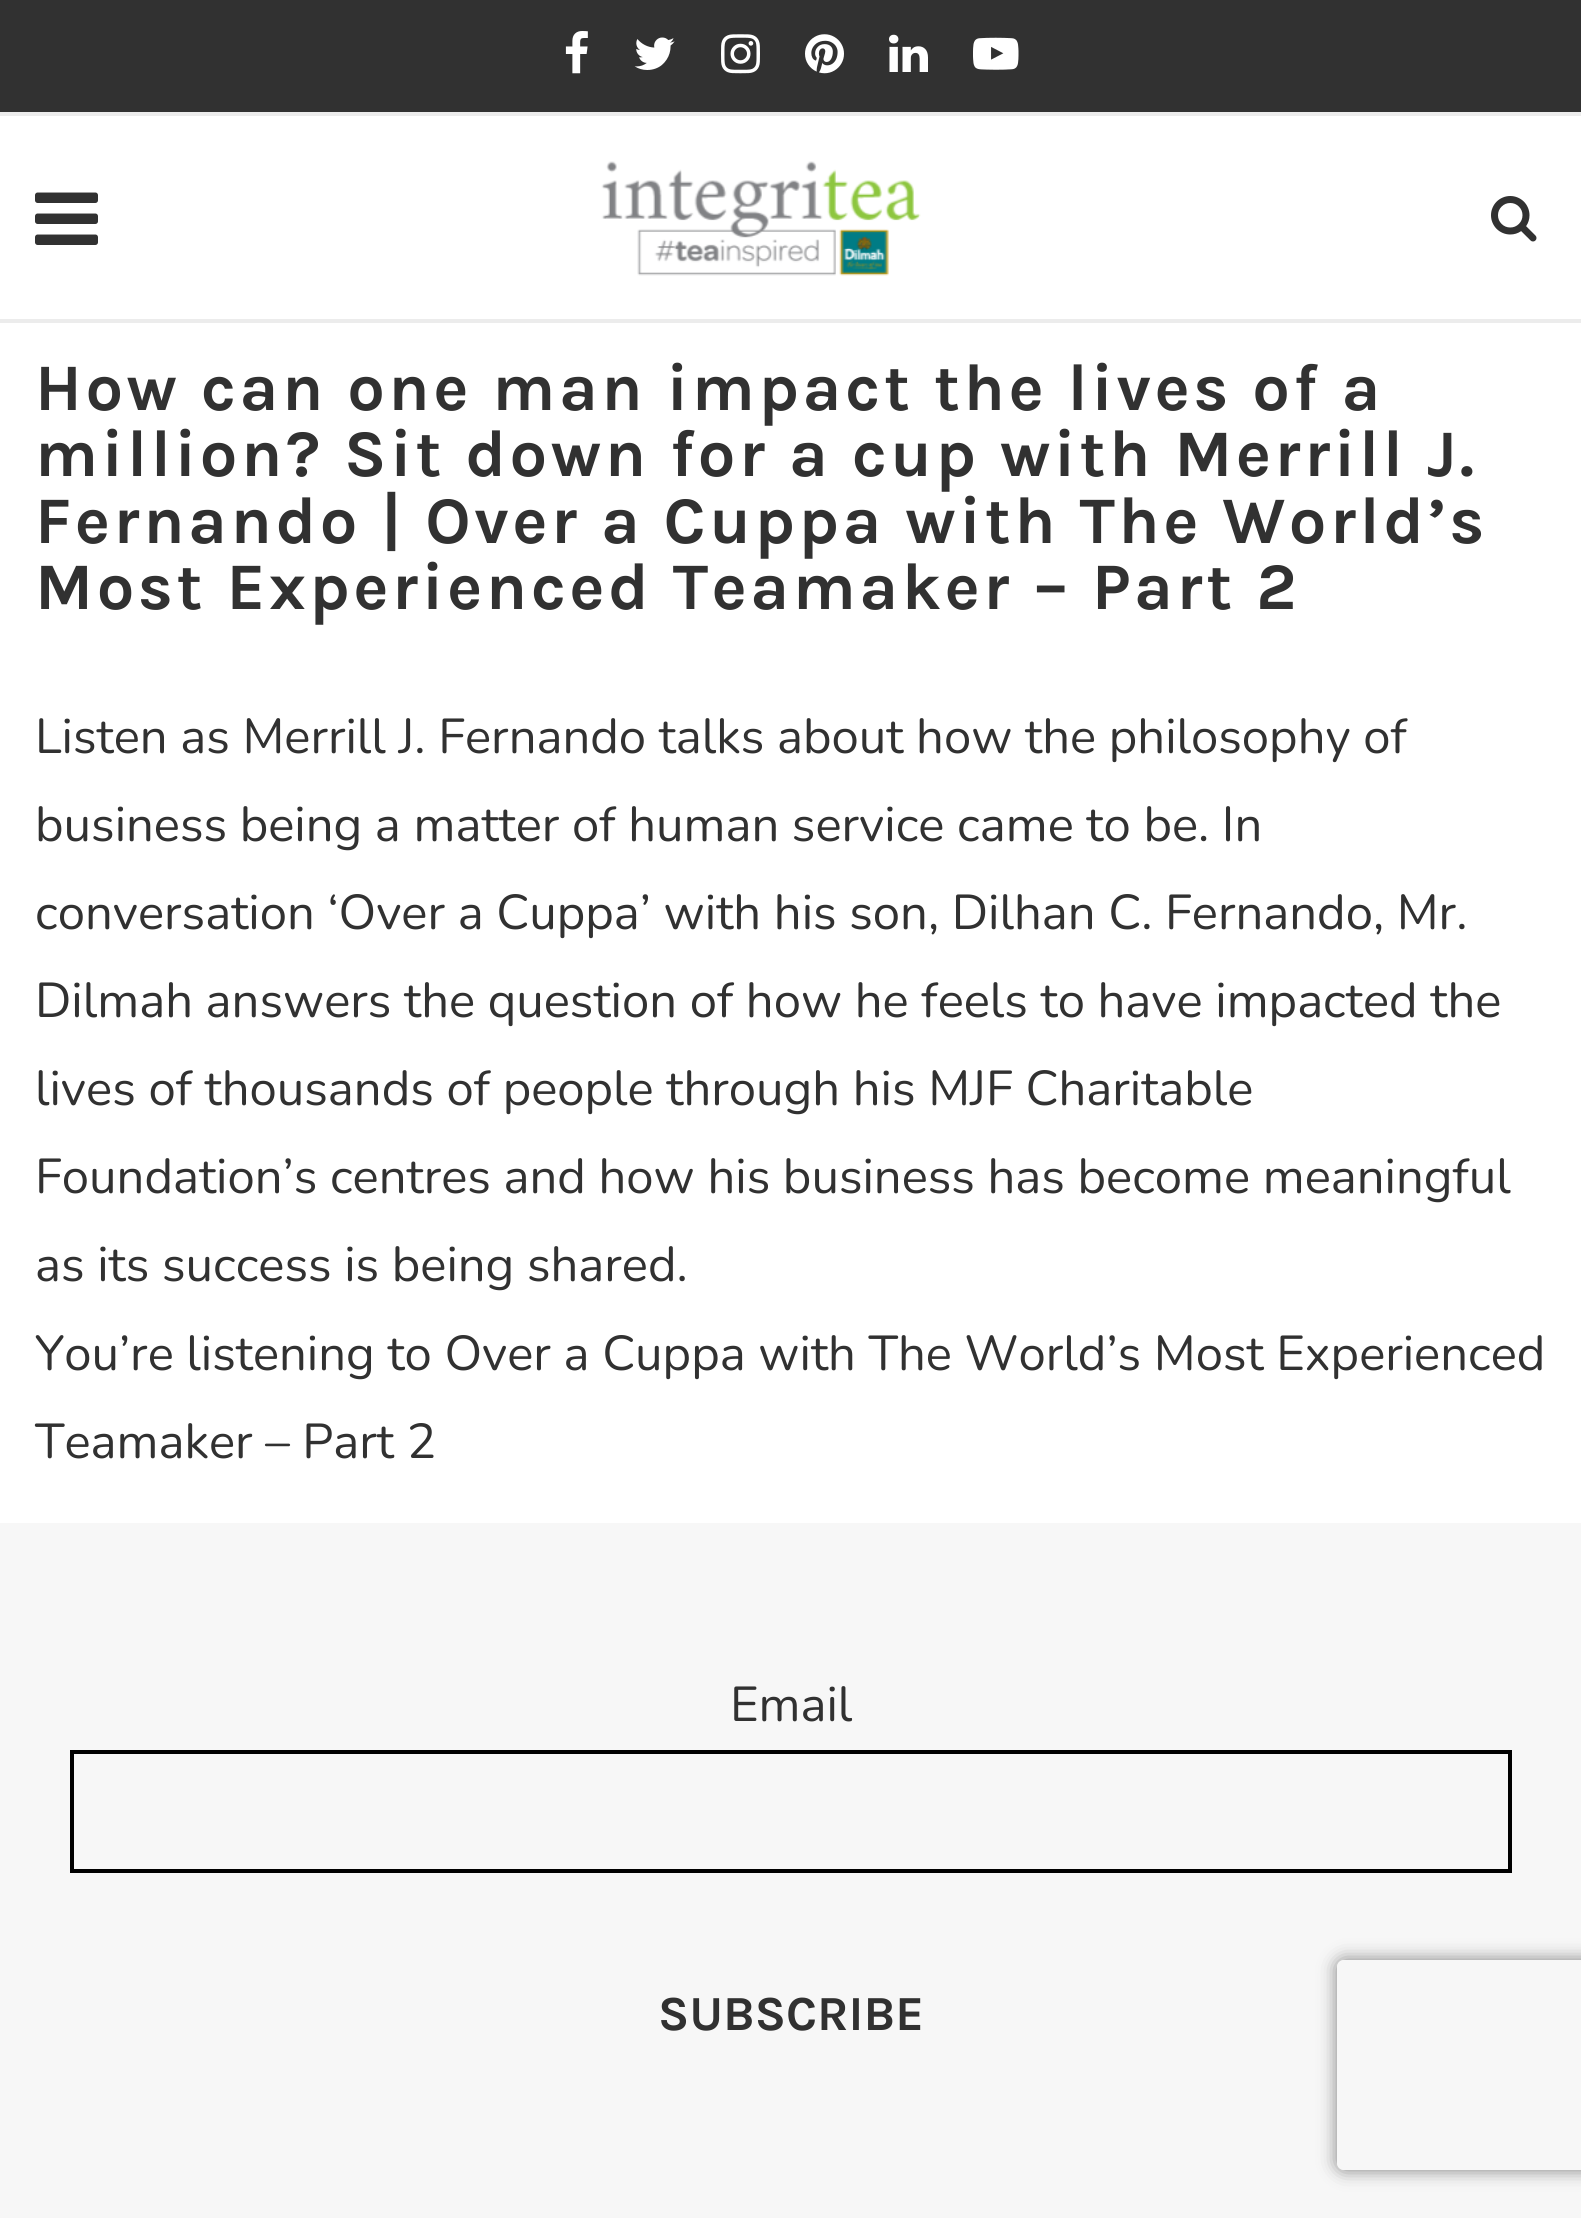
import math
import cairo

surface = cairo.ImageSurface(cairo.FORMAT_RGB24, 1581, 2218)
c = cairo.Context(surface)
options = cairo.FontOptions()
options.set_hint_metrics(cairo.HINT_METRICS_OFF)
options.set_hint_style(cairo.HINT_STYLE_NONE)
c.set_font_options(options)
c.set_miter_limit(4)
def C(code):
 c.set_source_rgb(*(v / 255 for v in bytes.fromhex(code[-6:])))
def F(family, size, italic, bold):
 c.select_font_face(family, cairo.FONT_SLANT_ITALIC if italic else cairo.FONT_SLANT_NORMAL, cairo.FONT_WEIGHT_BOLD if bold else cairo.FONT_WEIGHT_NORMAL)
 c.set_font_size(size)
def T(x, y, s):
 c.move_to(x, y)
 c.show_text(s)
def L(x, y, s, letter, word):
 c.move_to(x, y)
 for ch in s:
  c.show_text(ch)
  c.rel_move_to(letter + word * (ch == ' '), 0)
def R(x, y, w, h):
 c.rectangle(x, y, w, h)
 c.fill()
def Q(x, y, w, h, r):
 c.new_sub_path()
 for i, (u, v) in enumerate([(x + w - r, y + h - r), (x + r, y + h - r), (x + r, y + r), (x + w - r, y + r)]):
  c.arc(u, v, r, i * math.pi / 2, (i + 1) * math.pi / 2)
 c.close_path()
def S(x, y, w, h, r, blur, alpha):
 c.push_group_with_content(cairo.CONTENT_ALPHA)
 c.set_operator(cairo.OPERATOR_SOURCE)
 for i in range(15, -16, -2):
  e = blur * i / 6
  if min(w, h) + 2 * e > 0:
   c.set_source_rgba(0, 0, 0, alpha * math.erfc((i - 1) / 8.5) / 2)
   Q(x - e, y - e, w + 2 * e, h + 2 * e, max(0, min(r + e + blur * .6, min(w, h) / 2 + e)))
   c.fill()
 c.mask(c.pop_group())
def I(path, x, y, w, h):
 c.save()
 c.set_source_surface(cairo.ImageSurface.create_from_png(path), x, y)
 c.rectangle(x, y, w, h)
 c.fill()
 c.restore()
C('ffffff')
c.paint()
C('313131')
R(0,0,1581,112)
I('1.png',565,31,23,43)
I('2.png',634,37,41,33)
I('3.png',721,34,39,40)
I('4.png',805,34,39,40)
I('5.png',889,34,39,38)
I('6.png',973,37,46,33)
C('ececec')
R(0,112,1581,4)
R(0,319,1581,4)
I('7.png',35,192,63,53)
I('8.png',601,161,320,115)
I('9.png',1491,196,46,46)
F('Karla',66.5,0,1)
C('313131')
L(35,410,'How can one man impact the lives of a',3.5,0)
L(35,476,'million? Sit down for a cup with Merrill J.',3.5,0)
L(35,543,'Fernando | Over a Cuppa with The World’s',3.5,0)
L(35,609,'Most Experienced Teamaker – Part 2',3.5,0)
F('Nunito',49,0,0)
T(35,753,'Listen as Merrill J. Fernando talks about how the philosophy of')
T(35,841,'business being a matter of human service came to be. In')
T(35,929,'conversation ‘Over a Cuppa’ with his son, Dilhan C. Fernando, Mr.')
T(35,1017,'Dilmah answers the question of how he feels to have impacted the')
T(35,1105,'lives of thousands of people through his MJF Charitable')
T(35,1193,'Foundation’s centres and how his business has become meaningful')
T(35,1281,'as its success is being shared.')
T(35,1370,'You’re listening to Over a Cuppa with The World’s Most Experienced')
T(35,1458,'Teamaker – Part 2')
C('f7f7f7')
R(0,1523,1581,695)
C('313131')
T(730,1721,'Email')
c.rectangle(72,1752,1438,119)
C('000000')
c.set_line_width(4)
c.stroke()
F('Karla',49,0,1)
C('313131')
T(658,2030,'SUBSCRIBE')
c.save()
c.set_fill_rule(cairo.FILL_RULE_EVEN_ODD)
c.new_path()
c.move_to(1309,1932)
c.line_to(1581,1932)
c.line_to(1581,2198)
c.line_to(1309,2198)
c.close_path()
c.move_to(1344,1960)
c.line_to(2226,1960)
c.curve_to(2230,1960,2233,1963,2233,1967)
c.line_to(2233,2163)
c.curve_to(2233,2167,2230,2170,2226,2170)
c.line_to(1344,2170)
c.curve_to(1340,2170,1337,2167,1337,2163)
c.line_to(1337,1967)
c.curve_to(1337,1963,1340,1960,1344,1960)
c.close_path()
c.clip()
C('808080')
S(1337,1960,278,210,7,9,1)
c.restore()
surface.write_to_png('o.png')
